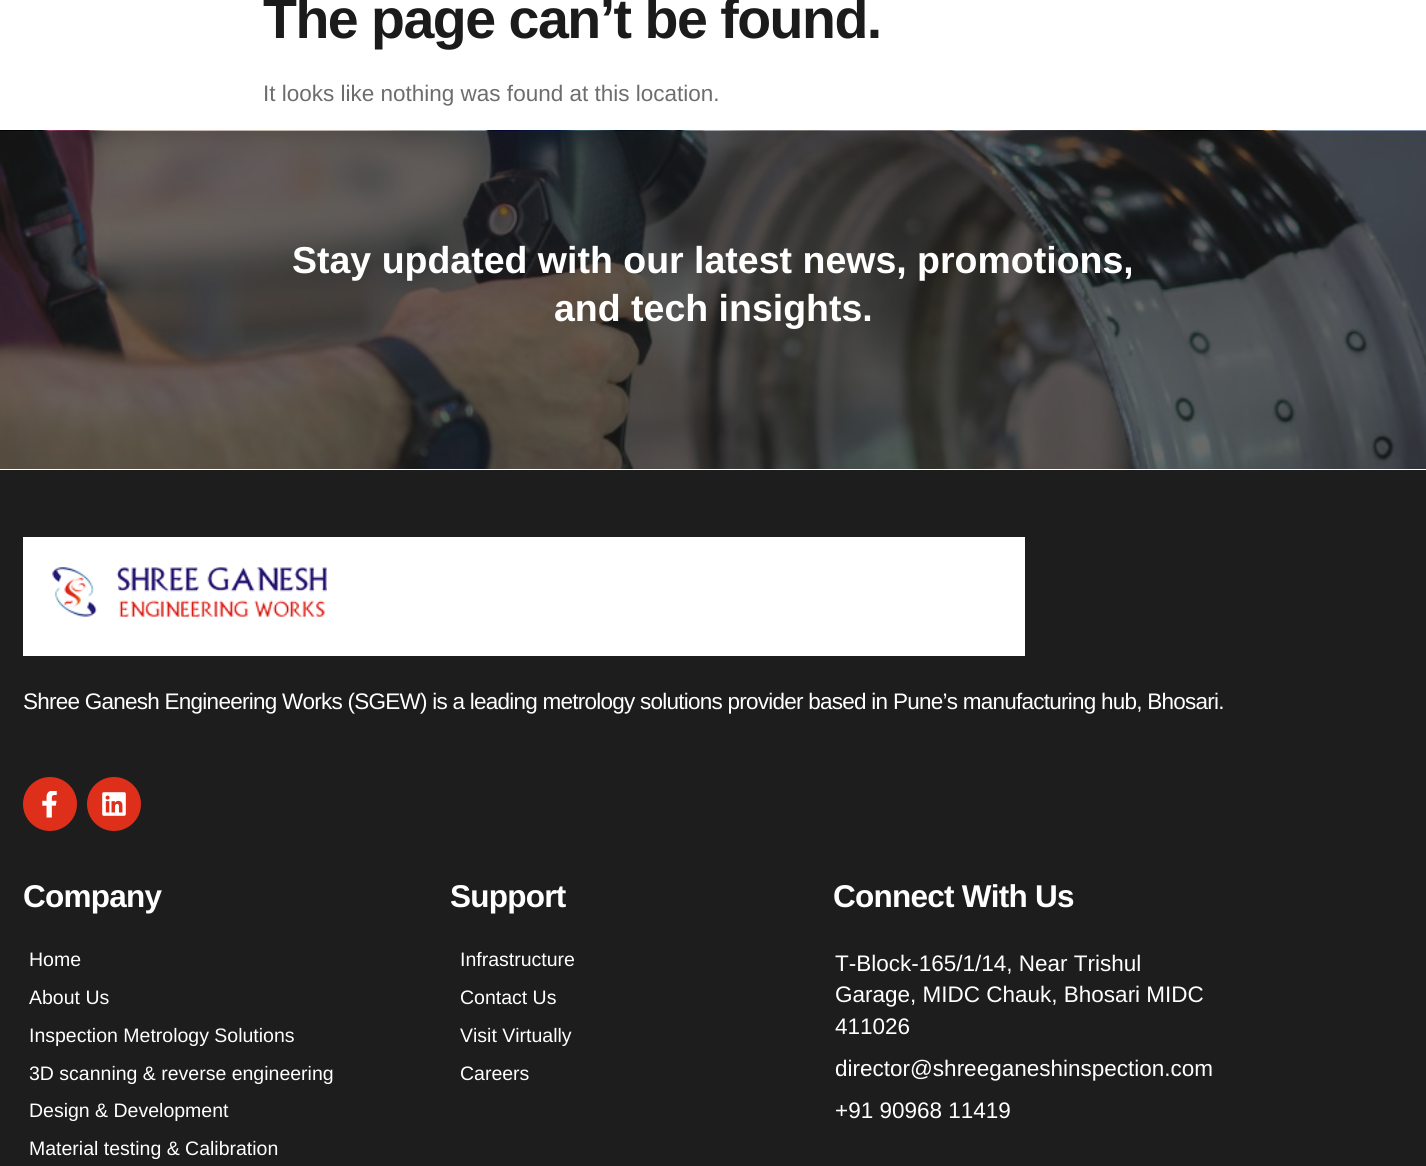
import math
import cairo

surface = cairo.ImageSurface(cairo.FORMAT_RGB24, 1426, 1166)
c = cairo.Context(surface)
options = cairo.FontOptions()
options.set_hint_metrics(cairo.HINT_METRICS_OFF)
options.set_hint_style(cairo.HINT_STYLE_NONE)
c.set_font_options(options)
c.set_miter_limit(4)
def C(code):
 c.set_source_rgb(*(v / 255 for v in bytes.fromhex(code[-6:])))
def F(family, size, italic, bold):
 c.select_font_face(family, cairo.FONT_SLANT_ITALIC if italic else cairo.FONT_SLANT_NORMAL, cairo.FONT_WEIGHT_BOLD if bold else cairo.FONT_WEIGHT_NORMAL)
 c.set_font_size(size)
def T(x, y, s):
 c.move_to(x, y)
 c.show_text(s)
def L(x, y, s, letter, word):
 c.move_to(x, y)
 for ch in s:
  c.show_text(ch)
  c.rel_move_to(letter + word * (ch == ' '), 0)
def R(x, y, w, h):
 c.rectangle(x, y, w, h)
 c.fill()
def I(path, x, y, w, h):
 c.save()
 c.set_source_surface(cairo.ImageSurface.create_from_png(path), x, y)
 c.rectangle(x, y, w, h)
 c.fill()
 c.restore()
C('ffffff')
c.paint()
F('Liberation Sans',55.5,0,1)
C('1b1b1b')
L(263,38,'The page can’t be found.',-1.5,0)
F('Liberation Sans',22.5,0,0)
C('6d6d6d')
T(263,101,'It looks like nothing was found at this location.')
I('1.png',0,130,1426,339)
F('Liberation Sans',37.5,0,1)
C('ffffff')
T(292,273,'Stay updated with our latest news, promotions,')
T(554,321,'and tech insights.')
C('1d1d1d')
R(0,470,1426,696)
C('ffffff')
R(23,537,1002,119)
I('2.png',52,567,275,50)
F('Liberation Sans',22.5,0,0)
L(23,709,'Shree Ganesh Engineering Works (SGEW) is a leading metrology solutions provider based in Pune’s manufacturing hub, Bhosari.',-.75,0)
C('de2f1b')
c.new_path()
c.arc(50,804,27,0,2 * math.pi)
c.fill()
I('3.png',42,791,15,27)
c.arc(114,804,27,0,2 * math.pi)
c.fill()
I('4.png',102,792,24,24)
F('Liberation Sans',31.5,0,1)
C('ffffff')
L(23,907,'Company',-.75,0)
F('Liberation Sans',19.5,0,0)
T(29,966,'Home')
T(29,1004,'About Us')
T(29,1042,'Inspection Metrology Solutions')
T(29,1080,'3D scanning & reverse engineering')
T(29,1117,'Design & Development')
T(29,1155,'Material testing & Calibration')
F('Liberation Sans',31.5,0,1)
L(450,907,'Support',-.75,0)
F('Liberation Sans',19.5,0,0)
T(460,966,'Infrastructure')
T(460,1004,'Contact Us')
T(460,1042,'Visit Virtually')
T(460,1080,'Careers')
F('Liberation Sans',31.5,0,1)
L(833,907,'Connect With Us',-.75,0)
F('Liberation Sans',22.5,0,0)
T(835,971,'T-Block-165/1/14, Near Trishul')
T(835,1002,'Garage, MIDC Chauk, Bhosari MIDC')
T(835,1034,'411026')
T(835,1076,'director@shreeganeshinspection.com')
T(835,1118,'+91 90968 11419')
surface.write_to_png('o.png')
